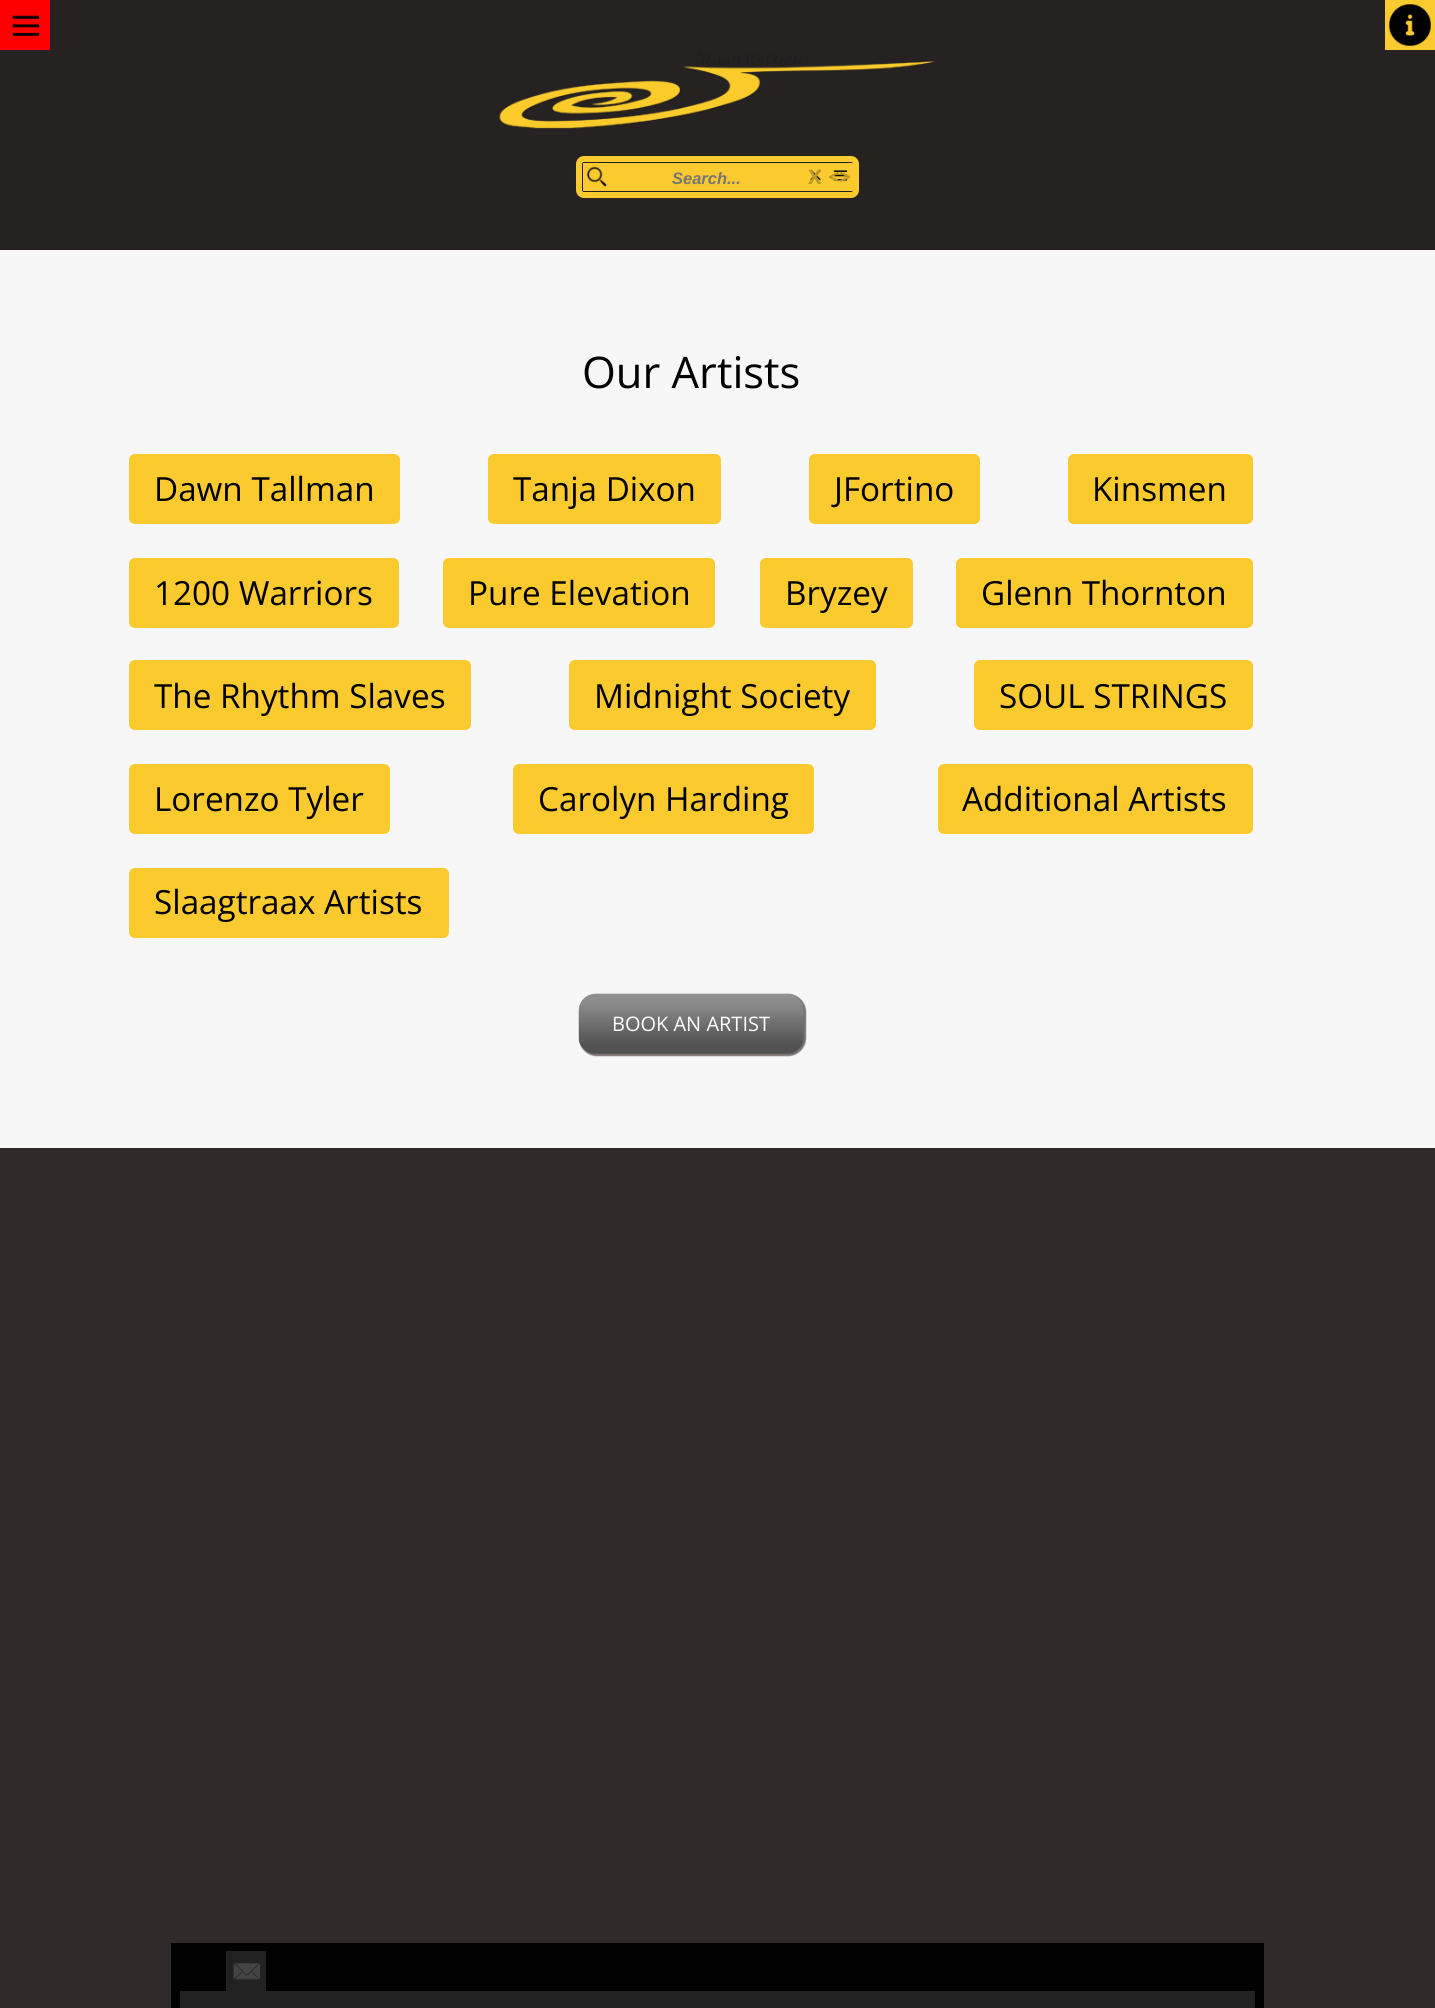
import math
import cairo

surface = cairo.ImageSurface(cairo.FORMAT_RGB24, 1435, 2008)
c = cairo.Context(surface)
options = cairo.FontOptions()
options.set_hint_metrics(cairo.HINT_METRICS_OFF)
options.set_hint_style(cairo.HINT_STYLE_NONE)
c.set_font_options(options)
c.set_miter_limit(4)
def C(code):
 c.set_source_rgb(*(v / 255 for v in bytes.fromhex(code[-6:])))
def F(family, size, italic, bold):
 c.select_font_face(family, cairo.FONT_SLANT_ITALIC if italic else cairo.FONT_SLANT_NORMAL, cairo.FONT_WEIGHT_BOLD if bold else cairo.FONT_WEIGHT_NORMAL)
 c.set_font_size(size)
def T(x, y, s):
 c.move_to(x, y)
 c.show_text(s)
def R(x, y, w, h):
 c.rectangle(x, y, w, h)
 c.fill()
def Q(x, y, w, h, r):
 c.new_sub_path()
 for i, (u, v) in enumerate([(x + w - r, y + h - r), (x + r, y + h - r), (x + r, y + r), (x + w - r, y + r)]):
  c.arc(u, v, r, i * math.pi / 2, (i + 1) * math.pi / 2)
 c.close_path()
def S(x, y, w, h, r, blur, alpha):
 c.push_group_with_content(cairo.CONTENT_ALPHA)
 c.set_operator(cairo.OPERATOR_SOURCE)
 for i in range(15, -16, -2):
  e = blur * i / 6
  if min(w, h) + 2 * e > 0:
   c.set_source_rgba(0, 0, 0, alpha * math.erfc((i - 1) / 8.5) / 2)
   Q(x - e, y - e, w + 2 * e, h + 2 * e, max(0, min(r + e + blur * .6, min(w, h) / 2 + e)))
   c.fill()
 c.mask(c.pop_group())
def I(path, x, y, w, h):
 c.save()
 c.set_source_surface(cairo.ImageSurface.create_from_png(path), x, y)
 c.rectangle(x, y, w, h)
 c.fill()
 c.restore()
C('302a2a')
c.paint()
C('262222')
R(0,0,1435,250)
C('ff0000')
R(0,0,50,50)
I('1.png',12,15,28,22)
C('faca2f')
R(1385,0,50,50)
I('2.png',1389,4,42,42)
I('3.png',499,52,436,77)
Q(583,163,270,28,.5)
c.fill()
I('4.png',587,166,20,21)
Q(579,159,277,36,5)
c.set_line_width(6)
c.stroke()
F('Liberation Sans',16.5,1,1)
C('757575')
T(672,184,'Search...')
I('5.png',810,169,11,12)
F('Open Sans',20,0,1)
C('be9924')
T(808,184,'X')
I('6.png',833,170,15,11)
T(828,184,'<>')
C('f7f7f7')
R(0,250,1435,898)
F('Open Sans',43.5,0,0)
C('000000')
T(582,388,'Our Artists')
C('faca2f')
Q(129,454,271,70,6)
c.fill()
F('Open Sans',33.25,0,0)
C('000000')
T(154,501,'Dawn Tallman')
C('faca2f')
Q(488,454,233,70,6)
c.fill()
C('000000')
T(513,501,'Tanja Dixon')
C('faca2f')
Q(809,454,171,70,6)
c.fill()
C('000000')
T(834,501,'JFortino')
C('faca2f')
Q(1068,454,185,70,6)
c.fill()
C('000000')
T(1092,501,'Kinsmen')
C('faca2f')
Q(129,558,270,70,6)
c.fill()
C('000000')
T(154,605,'1200 Warriors')
C('faca2f')
Q(443,558,272,70,6)
c.fill()
C('000000')
T(468,605,'Pure Elevation')
C('faca2f')
Q(760,558,153,70,6)
c.fill()
C('000000')
T(785,605,'Bryzey')
C('faca2f')
Q(956,558,297,70,6)
c.fill()
C('000000')
T(981,605,'Glenn Thornton')
C('faca2f')
Q(129,660,342,70,6)
c.fill()
C('000000')
T(154,708,'The Rhythm Slaves')
C('faca2f')
Q(569,660,307,70,6)
c.fill()
C('000000')
T(594,708,'Midnight Society')
C('faca2f')
Q(974,660,279,70,6)
c.fill()
C('000000')
T(999,708,'SOUL STRINGS')
C('faca2f')
Q(129,764,261,70,6)
c.fill()
C('000000')
T(154,811,'Lorenzo Tyler')
C('faca2f')
Q(513,764,301,70,6)
c.fill()
C('000000')
T(538,811,'Carolyn Harding')
C('faca2f')
Q(938,764,315,70,6)
c.fill()
C('000000')
T(962,811,'Additional Artists')
C('faca2f')
Q(129,868,320,70,6)
c.fill()
C('000000')
T(154,914,'Slaagtraax Artists')
C('7a7070')
S(579,994,227,62,18,.5,1)
C('6c6c6c')
Q(579,994,225,60,16)
c.fill()
I('7.png',579,994,225,60)
F('Open Sans',20,0,0)
C('ffffff')
T(612,1031,'BOOK AN ARTIST')
C('000000')
R(171,1943,1093,65)
C('222222')
R(226,1951,40,40)
I('8.png',233,1963,27,17)
R(180,1991,1075,17)
surface.write_to_png('o.png')
